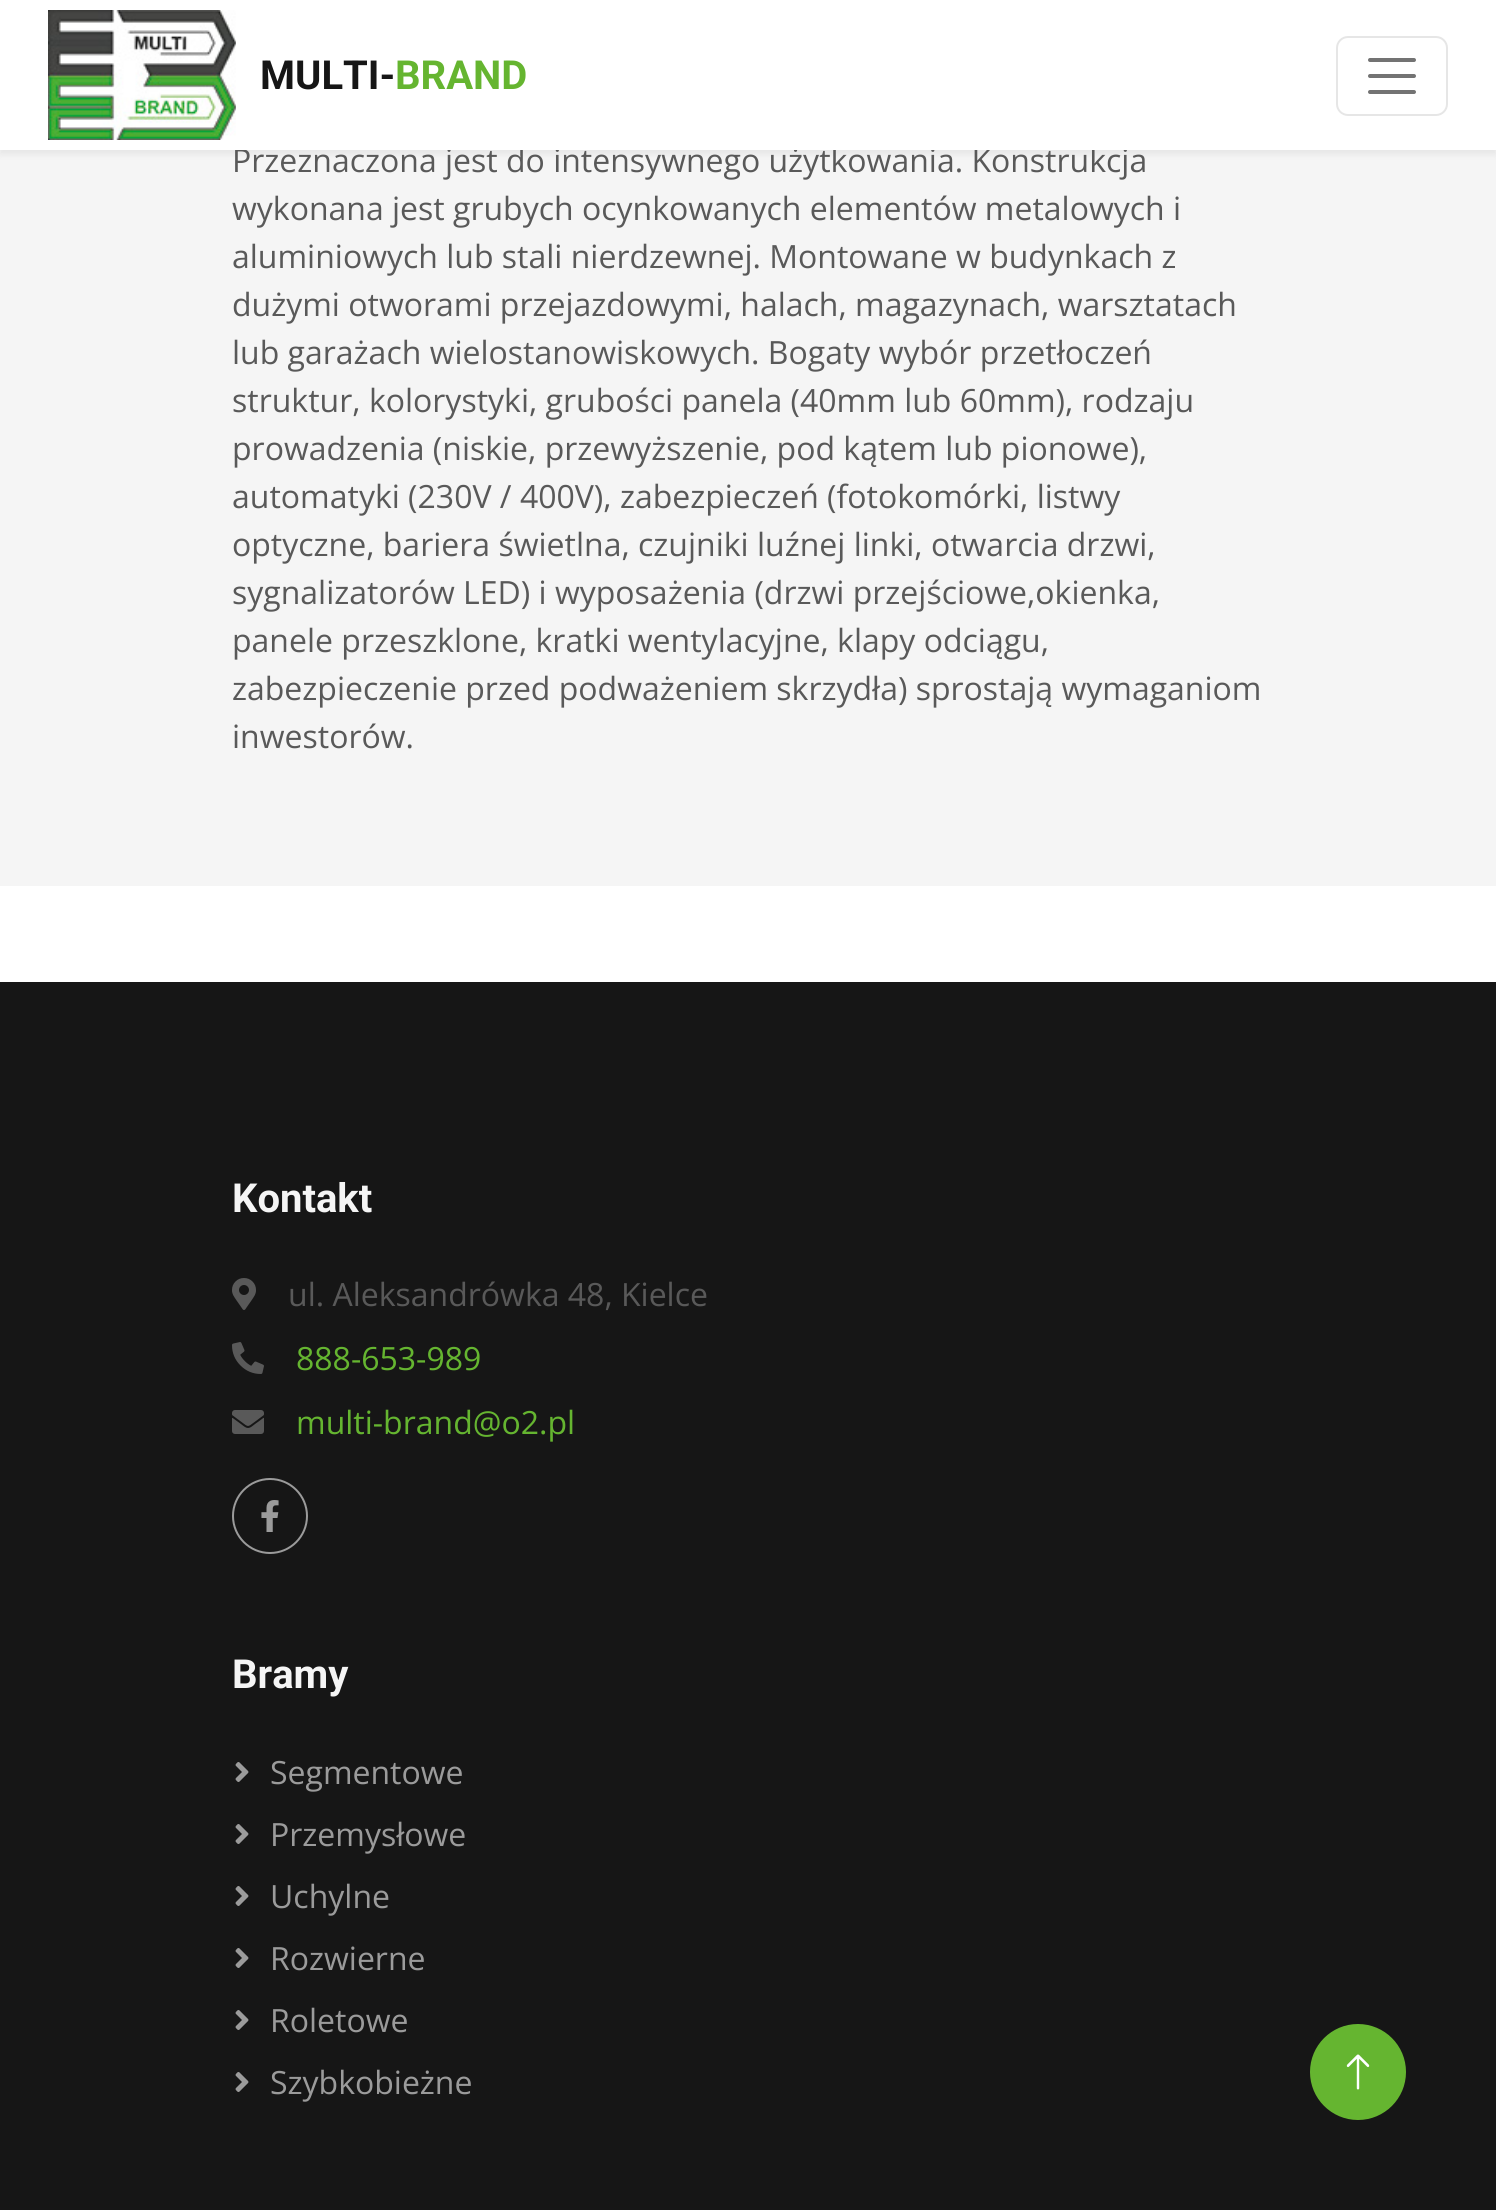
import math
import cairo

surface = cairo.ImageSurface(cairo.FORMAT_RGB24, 1496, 2210)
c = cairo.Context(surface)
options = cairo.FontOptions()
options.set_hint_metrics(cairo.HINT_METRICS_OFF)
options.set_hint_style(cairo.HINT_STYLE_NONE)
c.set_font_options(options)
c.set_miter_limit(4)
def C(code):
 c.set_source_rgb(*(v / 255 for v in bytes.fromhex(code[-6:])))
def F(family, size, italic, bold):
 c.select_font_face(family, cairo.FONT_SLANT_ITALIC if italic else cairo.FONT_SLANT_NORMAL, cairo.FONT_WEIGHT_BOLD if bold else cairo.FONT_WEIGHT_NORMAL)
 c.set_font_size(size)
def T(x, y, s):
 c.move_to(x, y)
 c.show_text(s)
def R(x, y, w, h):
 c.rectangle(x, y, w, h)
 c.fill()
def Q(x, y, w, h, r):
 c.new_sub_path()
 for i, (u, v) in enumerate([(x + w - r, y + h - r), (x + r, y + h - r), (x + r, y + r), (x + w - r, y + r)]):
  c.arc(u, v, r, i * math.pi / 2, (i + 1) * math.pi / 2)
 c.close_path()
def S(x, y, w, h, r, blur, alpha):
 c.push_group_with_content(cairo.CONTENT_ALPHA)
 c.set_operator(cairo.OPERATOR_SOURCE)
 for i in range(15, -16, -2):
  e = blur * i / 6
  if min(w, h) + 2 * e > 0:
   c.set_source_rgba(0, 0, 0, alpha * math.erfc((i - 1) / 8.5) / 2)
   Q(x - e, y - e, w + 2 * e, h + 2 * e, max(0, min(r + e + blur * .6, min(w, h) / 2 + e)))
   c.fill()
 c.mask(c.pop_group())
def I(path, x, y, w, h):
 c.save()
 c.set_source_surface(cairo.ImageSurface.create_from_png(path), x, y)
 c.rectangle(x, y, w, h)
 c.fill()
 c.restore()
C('ffffff')
c.paint()
C('f5f5f5')
R(0,150,1496,736)
C('000000')
S(0,4,1496,150,0,4,.07)
F('Open Sans',32,0,0)
C('595959')
T(232,172,'Przeznaczona jest do intensywnego użytkowania. Konstrukcja')
C('ffffff')
R(0,0,1496,150)
I('1.png',48,10,188,130)
F('Roboto',40,0,1)
C('161616')
T(260,89,'MULTI-')
C('65b530')
T(395,89,'BRAND')
Q(1337,37,110,78,11)
C('e6e6e6')
c.stroke()
c.new_path()
c.move_to(1370,60)
c.line_to(1414,60)
c.move_to(1370,76)
c.line_to(1414,76)
c.move_to(1370,92)
c.line_to(1414,92)
C('737373')
c.set_line_width(4)
c.set_line_cap(cairo.LINE_CAP_ROUND)
c.stroke()
F('Open Sans',32,0,0)
C('595959')
T(232,220,'wykonana jest grubych ocynkowanych elementów metalowych i')
T(232,268,'aluminiowych lub stali nierdzewnej. Montowane w budynkach z')
T(232,316,'dużymi otworami przejazdowymi, halach, magazynach, warsztatach')
T(232,364,'lub garażach wielostanowiskowych. Bogaty wybór przetłoczeń')
T(232,412,'struktur, kolorystyki, grubości panela (40mm lub 60mm), rodzaju')
T(232,460,'prowadzenia (niskie, przewyższenie, pod kątem lub pionowe),')
T(232,508,'automatyki (230V / 400V), zabezpieczeń (fotokomórki, listwy')
T(232,556,'optyczne, bariera świetlna, czujniki luźnej linki, otwarcia drzwi,')
T(232,604,'sygnalizatorów LED) i wyposażenia (drzwi przejściowe,okienka,')
T(232,652,'panele przeszklone, kratki wentylacyjne, klapy odciągu,')
T(232,700,'zabezpieczenie przed podważeniem skrzydła) sprostają wymaganiom')
T(232,748,'inwestorów.')
C('161616')
R(0,982,1496,1228)
F('Roboto',40,0,1)
C('f5f5f5')
T(232,1212,'Kontakt')
I('2.png',232,1278,24,32)
F('Open Sans',32,0,0)
C('595959')
T(288,1306,'ul. Aleksandrówka 48, Kielce')
I('3.png',232,1342,32,32)
C('65b530')
T(296,1370,'888-653-989')
I('4.png',232,1410,32,24)
T(296,1434,'multi-brand@o2.pl')
c.new_path()
c.arc(270,1516,37,0,2 * math.pi)
C('9b9b9b')
c.set_line_width(2)
c.set_line_cap(cairo.LINE_CAP_BUTT)
c.stroke()
I('5.png',261,1500,18,32)
F('Roboto',40,0,1)
C('f5f5f5')
T(232,1688,'Bramy')
I('6.png',235,1762,14,20)
F('Open Sans',32,0,0)
C('9b9b9b')
T(270,1784,'Segmentowe')
I('6.png',235,1824,14,20)
T(270,1846,'Przemysłowe')
I('6.png',235,1886,14,20)
T(270,1908,'Uchylne')
I('6.png',235,1948,14,20)
T(270,1970,'Rozwierne')
I('6.png',235,2010,14,20)
T(270,2032,'Roletowe')
I('6.png',235,2072,14,20)
T(270,2094,'Szybkobieżne')
C('65b530')
c.new_path()
c.arc(1358,2072,47,0,2 * math.pi)
c.fill_preserve()
c.stroke()
I('7.png',1346,2054,24,36)
surface.write_to_png('o.png')
